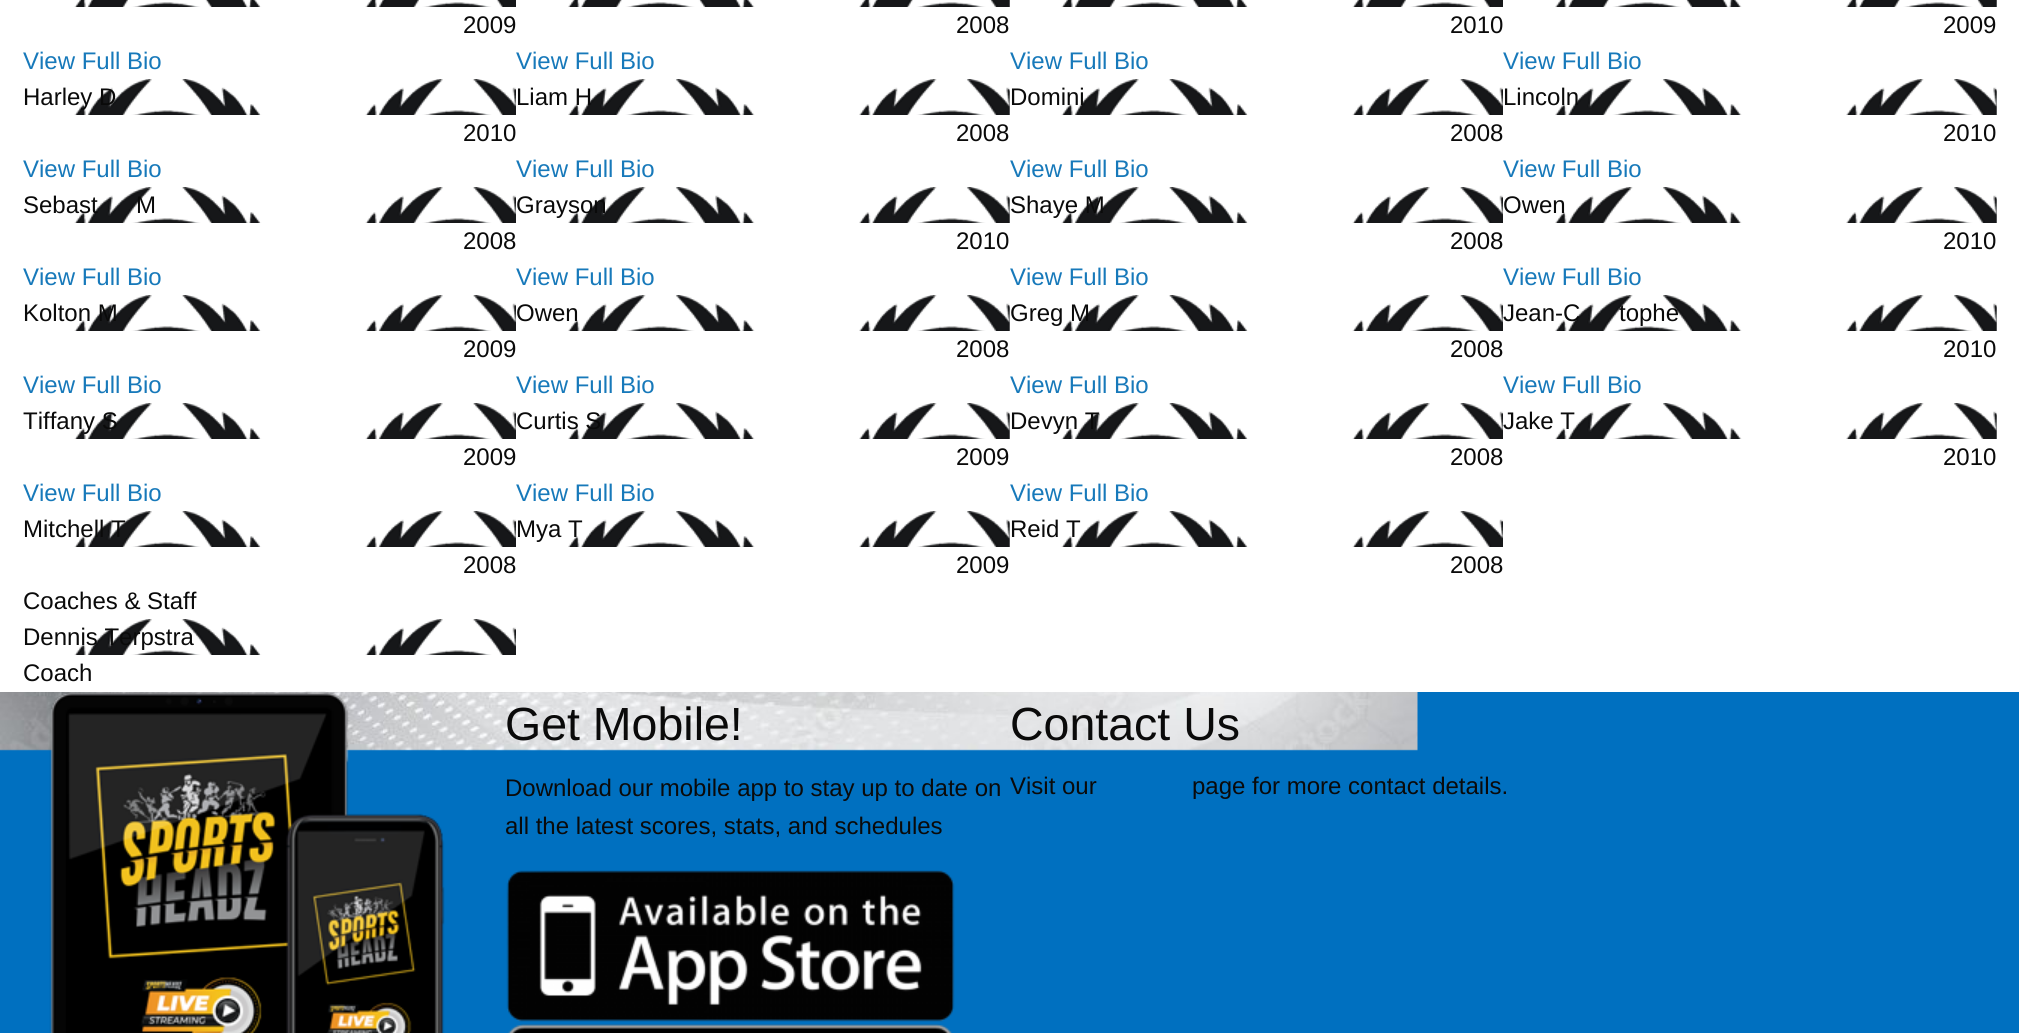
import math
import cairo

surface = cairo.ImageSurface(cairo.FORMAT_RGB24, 2019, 1033)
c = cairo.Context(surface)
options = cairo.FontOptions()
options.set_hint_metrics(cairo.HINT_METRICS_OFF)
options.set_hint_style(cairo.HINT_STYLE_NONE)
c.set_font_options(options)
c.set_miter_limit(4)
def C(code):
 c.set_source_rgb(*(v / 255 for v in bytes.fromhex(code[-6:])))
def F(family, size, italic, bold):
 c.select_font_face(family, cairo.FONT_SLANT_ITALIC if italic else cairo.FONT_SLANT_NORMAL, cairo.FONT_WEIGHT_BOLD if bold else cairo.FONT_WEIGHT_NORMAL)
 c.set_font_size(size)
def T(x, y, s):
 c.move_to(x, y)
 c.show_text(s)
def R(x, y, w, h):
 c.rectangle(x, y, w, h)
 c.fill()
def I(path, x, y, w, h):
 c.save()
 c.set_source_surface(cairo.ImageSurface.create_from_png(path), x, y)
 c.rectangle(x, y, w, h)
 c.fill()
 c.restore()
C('0070c0')
c.paint()
I('1.png',0,692,1418,59)
C('ffffff')
R(0,0,2019,692)
I('2.png',74,0,442,7)
I('3.png',74,0,430,7)
F('Liberation Sans',24,0,0)
C('0a0a0a')
T(463,33,'2009')
I('4.png',568,0,442,7)
I('5.png',568,0,442,7)
T(956,33,'2008')
I('6.png',1061,0,442,7)
I('7.png',1061,0,430,7)
T(1450,33,'2010')
I('8.png',1555,0,442,7)
I('9.png',1555,0,442,7)
T(1943,33,'2009')
C('1779ba')
T(23,69,'View Full Bio')
I('10.png',74,79,442,36)
I('11.png',74,79,442,36)
C('0a0a0a')
T(23,105,'Harley D')
T(463,141,'2010')
C('1779ba')
T(516,69,'View Full Bio')
I('12.png',568,79,442,36)
I('13.png',568,79,442,36)
C('0a0a0a')
T(516,105,'Liam H')
T(956,141,'2008')
C('1779ba')
T(1010,69,'View Full Bio')
I('14.png',1061,79,442,36)
I('15.png',1061,79,442,36)
C('0a0a0a')
T(1010,105,'Domini')
T(1450,141,'2008')
C('1779ba')
T(1503,69,'View Full Bio')
I('16.png',1555,79,442,36)
I('17.png',1555,79,442,36)
C('0a0a0a')
T(1503,105,'Lincoln')
T(1943,141,'2010')
C('1779ba')
T(23,177,'View Full Bio')
I('18.png',74,187,442,36)
I('19.png',74,187,442,36)
C('0a0a0a')
T(23,213,'Sebast')
T(136,213,'M')
T(463,249,'2008')
C('1779ba')
T(516,177,'View Full Bio')
I('20.png',568,187,442,36)
I('21.png',568,187,442,36)
C('0a0a0a')
T(516,213,'Grayson')
T(956,249,'2010')
C('1779ba')
T(1010,177,'View Full Bio')
I('22.png',1061,187,442,36)
I('23.png',1061,187,442,36)
C('0a0a0a')
T(1010,213,'Shaye M')
T(1450,249,'2008')
C('1779ba')
T(1503,177,'View Full Bio')
I('24.png',1555,187,442,36)
I('25.png',1555,187,442,36)
C('0a0a0a')
T(1503,213,'Owen')
T(1943,249,'2010')
C('1779ba')
T(23,285,'View Full Bio')
I('26.png',74,295,442,36)
I('27.png',74,295,442,36)
C('0a0a0a')
T(23,321,'Kolton M')
T(463,357,'2009')
C('1779ba')
T(516,285,'View Full Bio')
I('28.png',568,295,442,36)
I('29.png',568,295,442,36)
C('0a0a0a')
T(516,321,'Owen')
T(956,357,'2008')
C('1779ba')
T(1010,285,'View Full Bio')
I('30.png',1061,295,442,36)
I('31.png',1061,295,442,36)
C('0a0a0a')
T(1010,321,'Greg M')
T(1450,357,'2008')
C('1779ba')
T(1503,285,'View Full Bio')
I('32.png',1555,295,442,36)
I('33.png',1555,295,442,36)
C('0a0a0a')
T(1503,321,'Jean-C')
T(1619,321,'tophe')
T(1943,357,'2010')
C('1779ba')
T(23,393,'View Full Bio')
I('34.png',74,403,442,36)
I('35.png',74,403,442,36)
C('0a0a0a')
T(23,429,'Tiffany S')
T(463,465,'2009')
C('1779ba')
T(516,393,'View Full Bio')
I('36.png',568,403,442,36)
I('37.png',568,403,442,36)
C('0a0a0a')
T(516,429,'Curtis S')
T(956,465,'2009')
C('1779ba')
T(1010,393,'View Full Bio')
I('38.png',1061,403,442,36)
I('39.png',1061,403,442,36)
C('0a0a0a')
T(1010,429,'Devyn T')
T(1450,465,'2008')
C('1779ba')
T(1503,393,'View Full Bio')
I('40.png',1555,403,442,36)
I('41.png',1555,403,442,36)
C('0a0a0a')
T(1503,429,'Jake T')
T(1943,465,'2010')
C('1779ba')
T(23,501,'View Full Bio')
I('42.png',74,511,442,36)
I('43.png',74,511,442,36)
C('0a0a0a')
T(23,537,'Mitchell T')
T(463,573,'2008')
C('1779ba')
T(516,501,'View Full Bio')
I('44.png',568,511,442,36)
I('45.png',568,511,442,36)
C('0a0a0a')
T(516,537,'Mya T')
T(956,573,'2009')
C('1779ba')
T(1010,501,'View Full Bio')
I('46.png',1061,511,442,36)
I('47.png',1061,511,442,36)
C('0a0a0a')
T(1010,537,'Reid T')
T(1450,573,'2008')
T(23,609,'Coaches & Staff')
I('48.png',74,619,442,36)
I('49.png',74,619,442,36)
T(23,645,'Dennis Terpstra')
T(23,681,'Coach')
I('50.png',49,691,396,342)
F('Liberation Sans',46.5,0,0)
T(505,740,'Get Mobile!')
F('Liberation Sans',24,0,0)
T(505,796,'Download our mobile app to stay up to date on')
T(505,834,'all the latest scores, stats, and schedules')
I('51.png',506,870,449,152)
I('52.png',508,1024,444,9)
F('Liberation Sans',46.5,0,0)
T(1010,740,'Contact Us')
F('Liberation Sans',24,0,0)
T(1010,794,'Visit our')
T(1192,794,'page for more contact details.')
surface.write_to_png('o.png')
